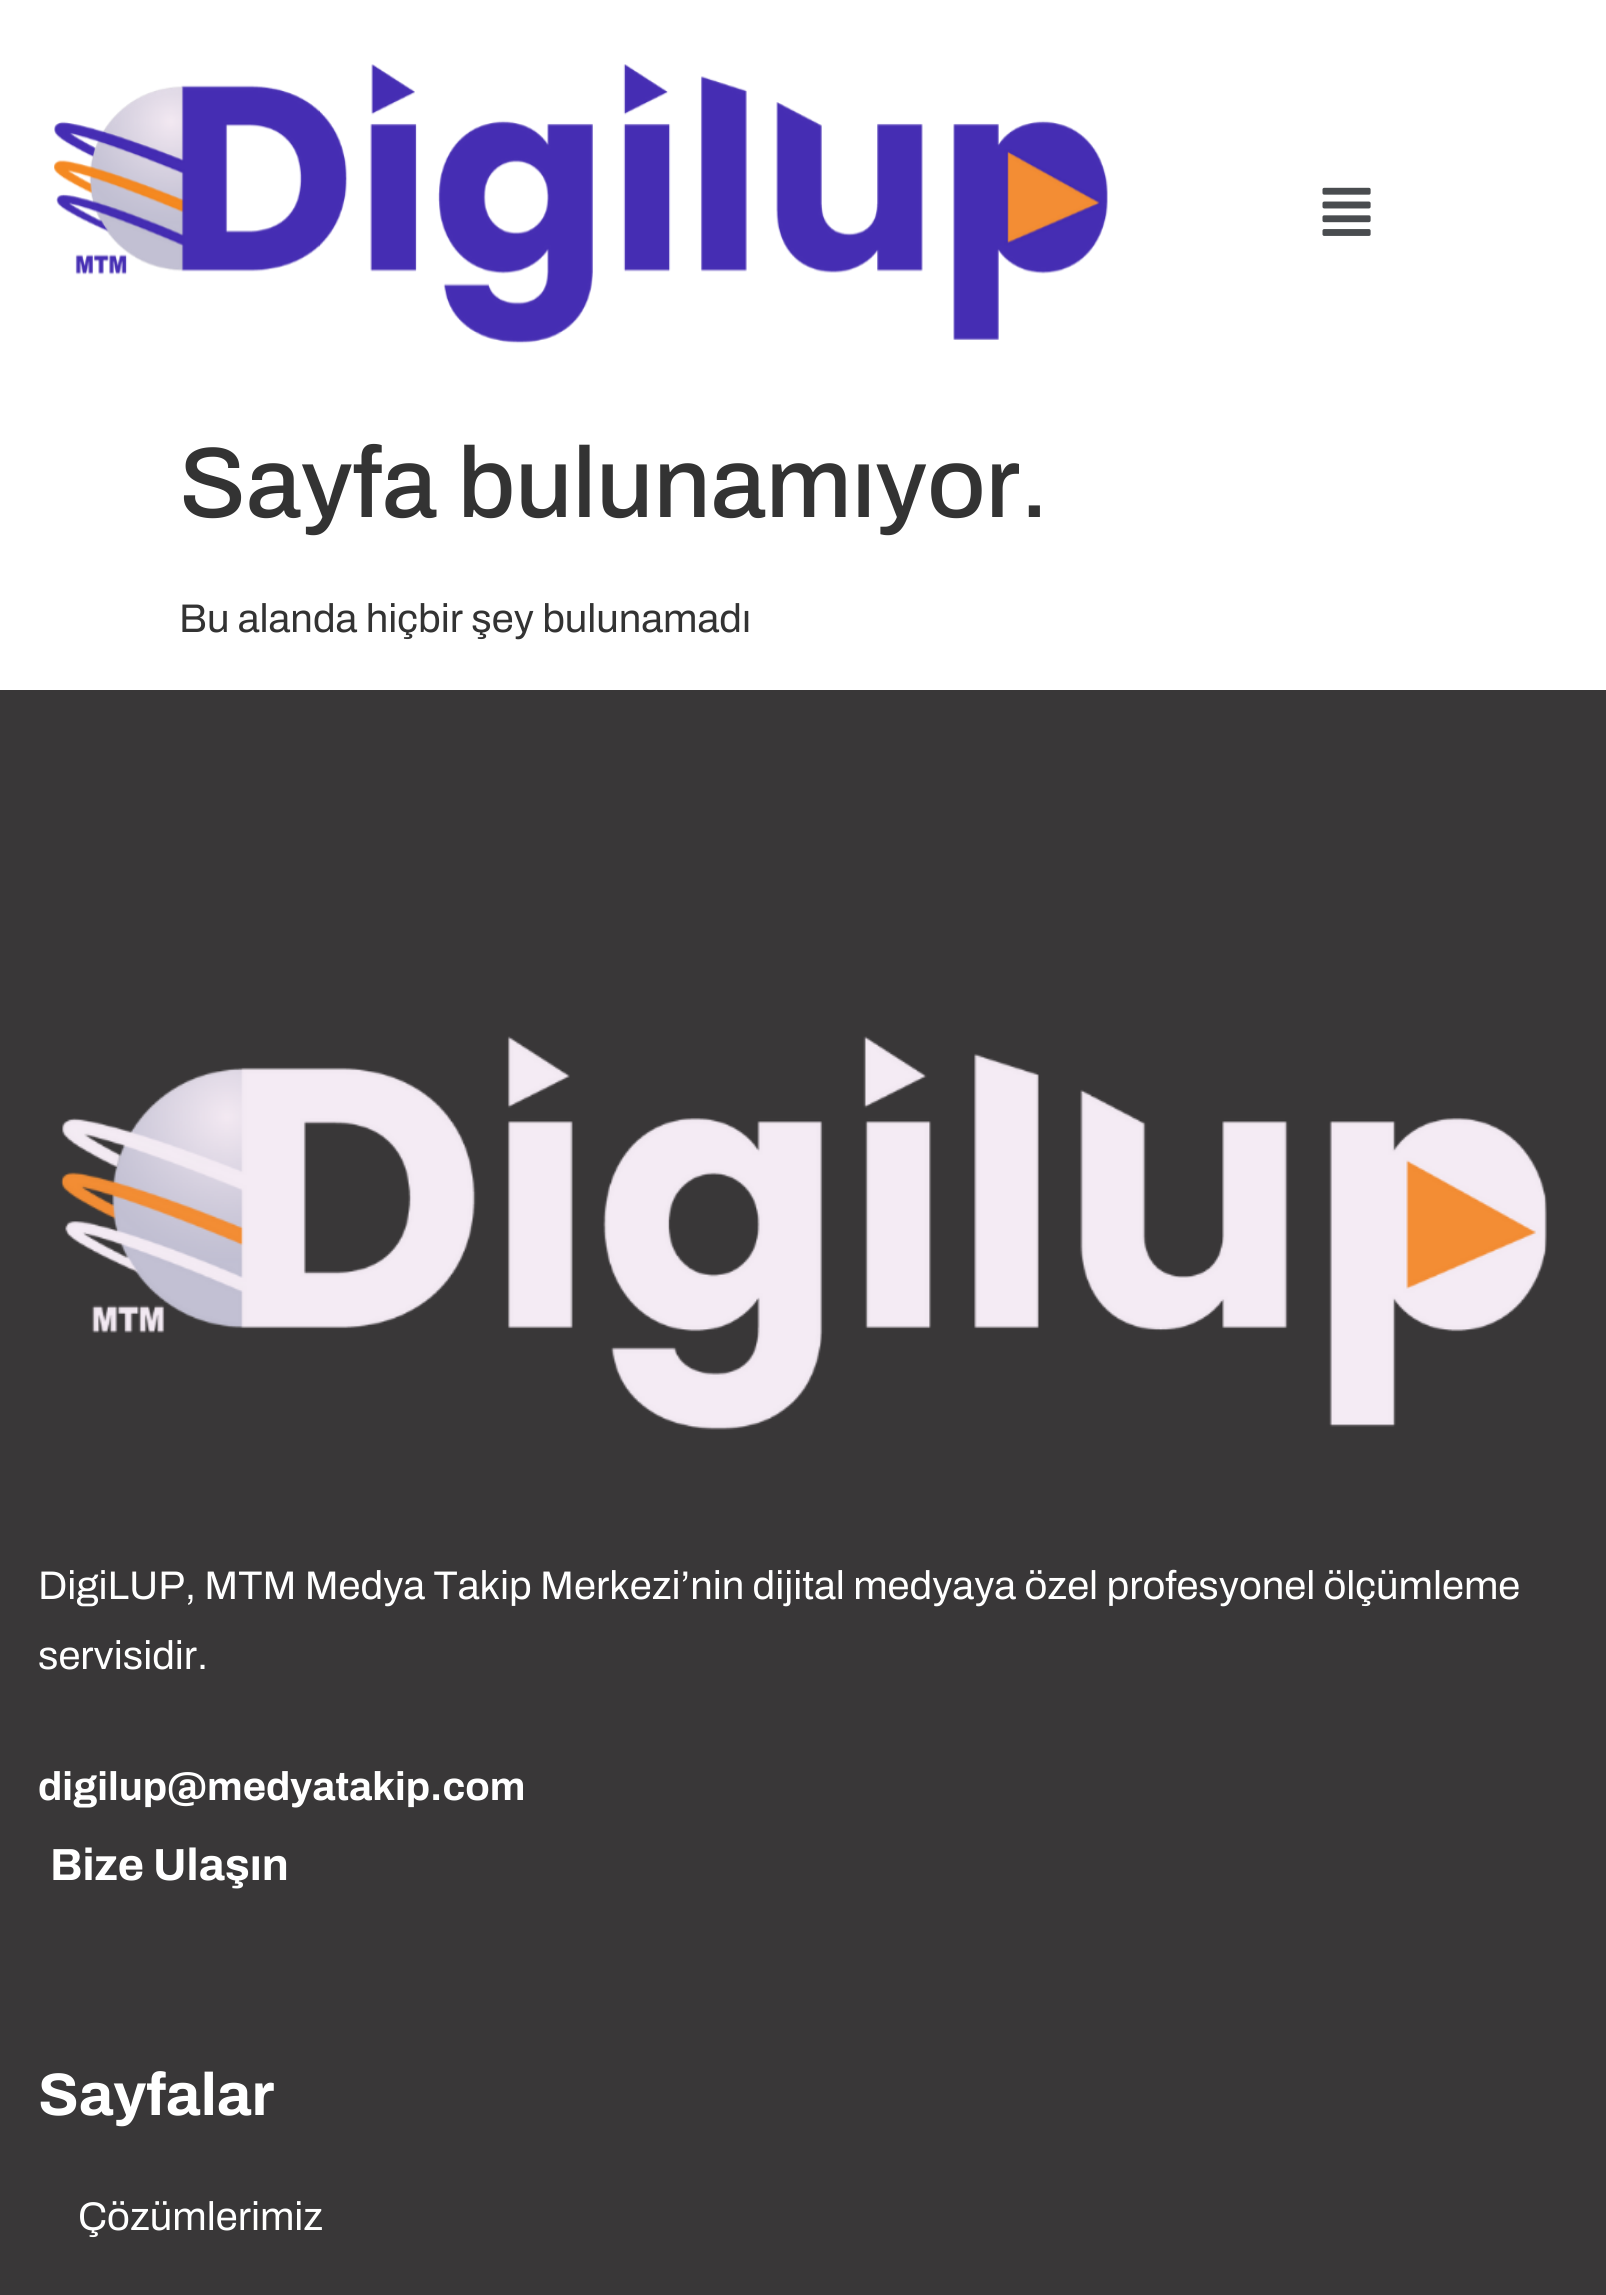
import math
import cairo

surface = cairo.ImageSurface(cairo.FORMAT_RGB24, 1606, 2295)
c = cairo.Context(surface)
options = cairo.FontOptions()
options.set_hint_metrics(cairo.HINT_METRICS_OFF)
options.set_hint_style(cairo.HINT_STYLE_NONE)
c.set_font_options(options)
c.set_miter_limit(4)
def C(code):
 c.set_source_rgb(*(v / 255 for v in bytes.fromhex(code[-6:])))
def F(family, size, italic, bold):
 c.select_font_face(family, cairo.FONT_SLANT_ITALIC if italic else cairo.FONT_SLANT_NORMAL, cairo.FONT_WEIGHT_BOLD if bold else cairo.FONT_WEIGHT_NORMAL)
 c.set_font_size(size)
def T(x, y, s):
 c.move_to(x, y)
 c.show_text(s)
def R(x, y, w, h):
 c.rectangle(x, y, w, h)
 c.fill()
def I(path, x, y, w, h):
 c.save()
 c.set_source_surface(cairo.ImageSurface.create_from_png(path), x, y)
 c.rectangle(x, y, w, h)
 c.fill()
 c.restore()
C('ffffff')
c.paint()
I('1.png',54,64,1054,280)
I('2.png',1322,187,49,49)
F('Archivo Medium',100,0,0)
C('333333')
T(179,517,'Sayfa bulunamıyor.')
F('Archivo',40,0,0)
T(179,632,'Bu alanda hiçbir şey bulunamadı')
C('393738')
R(0,690,1606,1605)
I('3.png',60,1036,1487,394)
C('ffffff')
T(38,1599,'DigiLUP, MTM Medya Takip Merkezi’nin dijital medyaya özel profesyonel ölçümleme')
T(38,1669,'servisidir.')
F('Archivo',40,0,1)
T(38,1800,'digilup@medyatakip.com')
F('Archivo',45,0,1)
T(50,1880,'Bize Ulaşın')
F('Archivo',60,0,1)
T(38,2115,'Sayfalar')
F('Archivo',40,0,0)
T(78,2230,'Çözümlerimiz')
surface.write_to_png('o.png')
